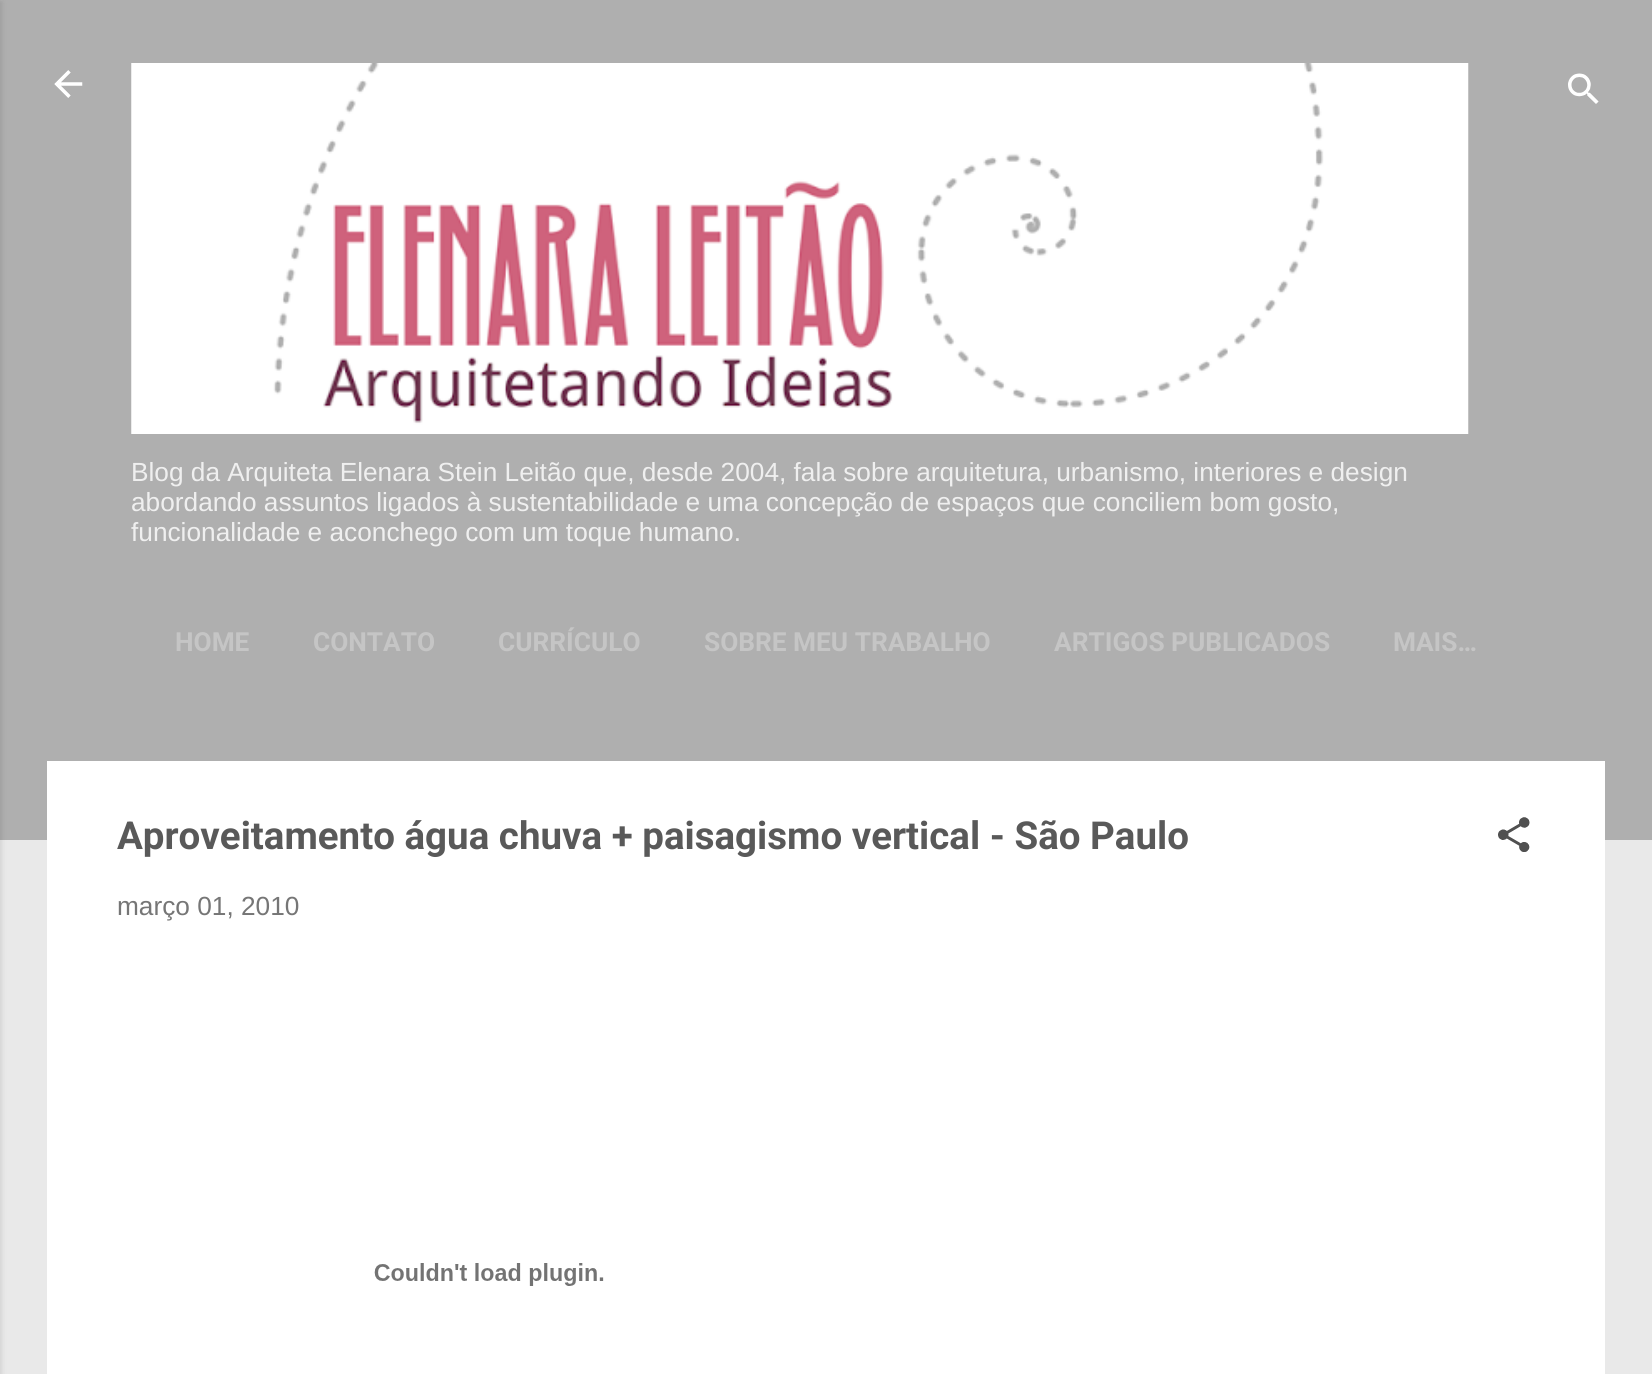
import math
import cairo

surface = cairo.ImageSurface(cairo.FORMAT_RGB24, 1652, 1374)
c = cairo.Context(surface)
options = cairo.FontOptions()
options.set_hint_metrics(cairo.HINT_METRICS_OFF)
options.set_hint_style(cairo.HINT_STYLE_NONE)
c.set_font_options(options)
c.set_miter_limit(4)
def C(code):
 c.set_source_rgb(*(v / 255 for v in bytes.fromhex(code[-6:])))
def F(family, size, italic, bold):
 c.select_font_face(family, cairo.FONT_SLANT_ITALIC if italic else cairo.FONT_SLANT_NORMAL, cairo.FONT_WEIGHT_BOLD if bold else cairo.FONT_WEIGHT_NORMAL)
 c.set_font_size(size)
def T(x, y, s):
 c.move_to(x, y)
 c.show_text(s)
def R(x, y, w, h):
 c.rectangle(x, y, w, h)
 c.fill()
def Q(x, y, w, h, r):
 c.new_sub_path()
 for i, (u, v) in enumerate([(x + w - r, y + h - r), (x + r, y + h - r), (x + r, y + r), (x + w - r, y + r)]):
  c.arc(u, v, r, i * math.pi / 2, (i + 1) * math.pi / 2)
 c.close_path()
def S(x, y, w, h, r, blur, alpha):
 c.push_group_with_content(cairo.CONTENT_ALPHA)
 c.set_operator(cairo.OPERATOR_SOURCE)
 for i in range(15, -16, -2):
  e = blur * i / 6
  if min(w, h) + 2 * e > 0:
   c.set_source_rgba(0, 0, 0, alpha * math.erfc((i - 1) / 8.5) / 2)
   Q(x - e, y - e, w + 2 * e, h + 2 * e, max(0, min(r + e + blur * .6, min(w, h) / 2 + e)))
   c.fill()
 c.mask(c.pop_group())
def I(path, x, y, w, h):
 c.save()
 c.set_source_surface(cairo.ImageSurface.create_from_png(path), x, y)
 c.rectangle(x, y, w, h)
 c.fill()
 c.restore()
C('e9e9e9')
c.paint()
C('afafaf')
R(0,0,1652,840)
C('000000')
S(-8,2,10,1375,0,2.5,.1)
I('1.png',54,70,29,28)
I('2.png',1568,73,31,31)
I('3.png',131,63,1338,371)
F('Liberation Sans',26.25,0,0)
C('efefef')
T(131,481,'Blog da Arquiteta Elenara Stein Leitão que, desde 2004, fala sobre arquitetura, urbanismo, interiores e design')
T(131,511,'abordando assuntos ligados à sustentabilidade e uma concepção de espaços que conciliem bom gosto,')
T(131,541,'funcionalidade e aconchego com um toque humano.')
F('Roboto',26.25,0,1)
C('c5c5c5')
T(175,651,'HOME')
T(313,651,'CONTATO')
T(498,651,'CURRÍCULO')
T(704,651,'SOBRE MEU TRABALHO')
T(1054,651,'ARTIGOS PUBLICADOS')
T(1393,651,'MAIS…')
C('ffffff')
R(47,761,1558,613)
F('Roboto',38.5,0,1)
C('595959')
T(117,849,'Aproveitamento água chuva + paisagismo vertical - São Paulo')
I('4.png',1498,817,32,35)
F('Liberation Sans',26.25,0,0)
C('767676')
T(117,915,'março 01, 2010')
I('5.png',374,1263,230,23)
surface.write_to_png('o.png')
